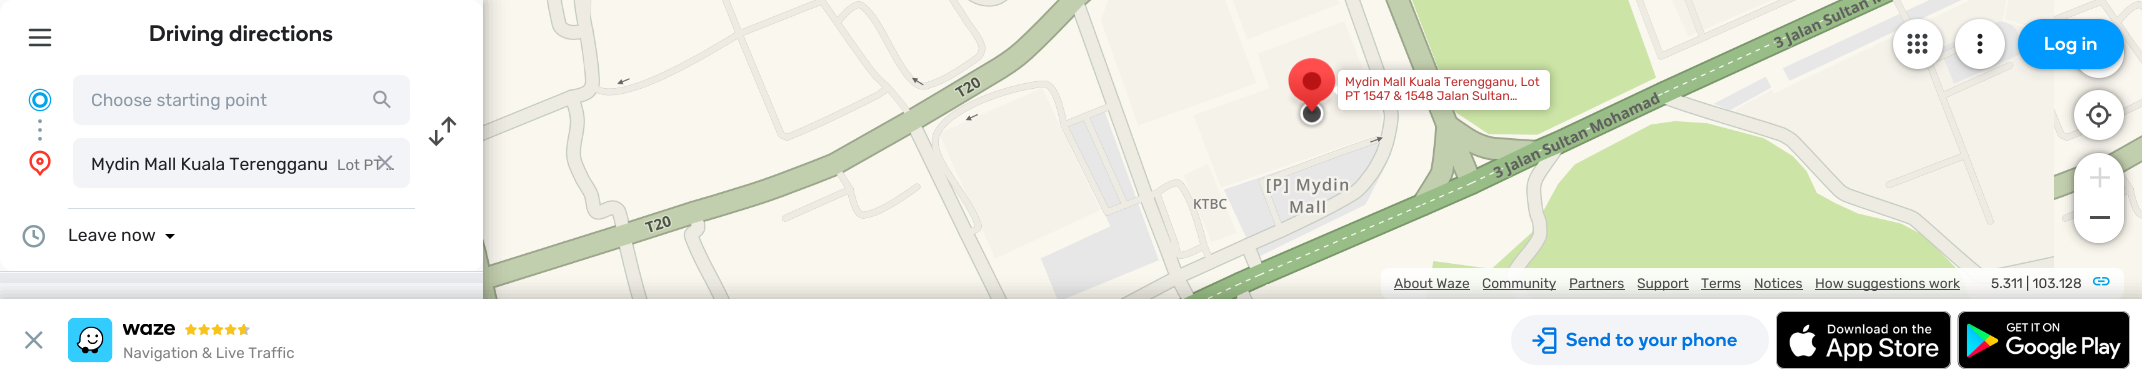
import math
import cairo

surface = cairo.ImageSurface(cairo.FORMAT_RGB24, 2142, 381)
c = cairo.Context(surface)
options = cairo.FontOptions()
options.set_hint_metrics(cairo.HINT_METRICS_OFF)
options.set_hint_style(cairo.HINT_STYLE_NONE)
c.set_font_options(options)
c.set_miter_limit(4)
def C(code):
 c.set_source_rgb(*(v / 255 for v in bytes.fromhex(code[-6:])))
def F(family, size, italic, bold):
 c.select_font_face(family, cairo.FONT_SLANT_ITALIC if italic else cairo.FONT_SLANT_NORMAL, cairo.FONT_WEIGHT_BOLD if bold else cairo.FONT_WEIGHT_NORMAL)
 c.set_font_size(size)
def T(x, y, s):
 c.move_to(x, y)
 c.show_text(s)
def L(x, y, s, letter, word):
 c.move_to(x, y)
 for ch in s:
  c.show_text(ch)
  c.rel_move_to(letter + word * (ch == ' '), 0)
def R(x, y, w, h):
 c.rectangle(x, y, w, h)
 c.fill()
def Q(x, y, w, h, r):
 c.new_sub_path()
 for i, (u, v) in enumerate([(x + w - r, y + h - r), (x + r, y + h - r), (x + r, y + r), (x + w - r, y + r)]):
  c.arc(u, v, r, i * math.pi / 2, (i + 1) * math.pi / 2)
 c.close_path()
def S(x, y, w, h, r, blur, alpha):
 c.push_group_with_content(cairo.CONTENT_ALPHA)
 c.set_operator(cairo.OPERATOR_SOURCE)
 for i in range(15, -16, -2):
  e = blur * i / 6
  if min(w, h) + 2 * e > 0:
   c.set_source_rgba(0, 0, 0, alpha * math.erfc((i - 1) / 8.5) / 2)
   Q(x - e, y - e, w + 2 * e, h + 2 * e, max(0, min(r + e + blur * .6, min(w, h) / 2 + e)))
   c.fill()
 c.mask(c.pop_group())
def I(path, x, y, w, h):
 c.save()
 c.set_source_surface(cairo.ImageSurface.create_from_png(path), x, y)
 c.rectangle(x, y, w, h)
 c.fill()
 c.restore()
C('f9f6ed')
c.paint()
I('8.png',483,0,291,284)
I('14.png',483,284,247,15)
C('000000')
S(0,3,483,298,0,5,.12)
S(0,0,483,299,0,12.5,.3)
C('f8f9fa')
R(0,0,483,299)
C('ffffff')
c.new_path()
c.move_to(13,0)
c.line_to(470,0)
c.curve_to(477,0,483,6,483,13)
c.line_to(483,75)
c.line_to(0,75)
c.line_to(0,13)
c.curve_to(0,6,6,0,13,0)
c.close_path()
c.fill()
I('1.png',28,28,24,19)
F('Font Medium',22.5,0,0)
C('202124')
L(149,41,'Driving directions',.4,0)
C('ffffff')
R(0,75,483,133)
C('869ca7')
c.new_path()
c.arc(40,121.2,1.9,0,2 * math.pi)
c.fill()
c.arc(40,130,1.9,0,2 * math.pi)
c.fill()
c.arc(40,138.8,1.9,0,2 * math.pi)
c.fill()
I('2.png',28,88,24,24)
C('f2f4f7')
Q(73,75,337,50,8)
c.fill()
F('Rubik',17.5,0,0)
C('8b98a5')
T(91,106,'Choose starting point')
I('3.png',373,90,18,19)
I('4.png',428,116,29,31)
I('5.png',29,150,22,26)
C('f2f4f7')
Q(73,138,337,50,8)
c.fill()
F('Rubik',15,0,0)
C('777777')
T(337,170,'Lot PT …')
I('6.png',377,155,16,15)
F('Rubik',17.5,0,0)
C('202124')
T(91,170,'Mydin Mall Kuala Terengganu')
C('ffffff')
c.new_path()
c.move_to(0,208)
c.line_to(483,208)
c.line_to(483,258)
c.curve_to(483,265,477,271,470,271)
c.line_to(13,271)
c.curve_to(6,271,0,265,0,258)
c.close_path()
c.fill()
C('d3dae0')
R(68,208,347,1)
I('7.png',22,225,23,23)
C('202124')
T(68,241,'Leave now')
C('000000')
c.new_path()
c.move_to(165,234)
c.line_to(175,234)
c.line_to(170,239)
c.close_path()
c.fill()
C('d5d7db')
R(0,271,483,1)
C('e8eaed')
R(0,273,483,10)
I('9.png',774,0,320,284)
I('10.png',1094,0,320,284)
I('11.png',1414,0,320,284)
I('12.png',1734,0,320,284)
I('13.png',2054,0,88,222)
I('15.png',983,284,111,15)
I('16.png',1094,284,174,15)
I('17.png',1426,284,308,15)
I('18.png',1734,284,260,15)
C('000000')
S(1338,70,212,40,5,5,.3)
C('ffffff')
c.new_path()
c.move_to(1337.5,85)
c.line_to(1337.5,95)
c.line_to(1332.5,90)
c.close_path()
c.fill()
I('19.png',1287,58,49,71)
Q(1338,70,212,40,5)
c.fill()
F('Rubik',12.5,0,0)
C('c03131')
T(1345,86,'Mydin Mall Kuala Terengganu, Lot')
T(1345,100,'PT 1547 & 1548 Jalan Sultan…')
C('000000')
S(2074,28,50,50,25,6,.3)
S(2074,28,50,50,25,2.5,.3)
C('ffffff')
c.arc(2099,53,25,0,2 * math.pi)
c.fill()
C('000000')
S(2074,90,50,50,25,6,.3)
S(2074,90,50,50,25,2.5,.3)
C('ffffff')
c.arc(2099,115,25,0,2 * math.pi)
c.fill()
I('20.png',2086,102,26,26)
C('000000')
S(2074,153,50,90,25,6,.3)
S(2074,153,50,90,25,2.5,.3)
C('ffffff')
Q(2074,153,50,90,25)
c.fill()
I('21.png',2090,167,20,21)
c.new_path()
c.move_to(2074,198)
c.line_to(2124,198)
c.line_to(2124,218)
c.curve_to(2124,232,2113,243,2099,243)
c.curve_to(2085,243,2074,232,2074,218)
c.close_path()
c.fill()
C('4c4c4c')
R(2090,216,20,3)
c.set_source_rgba(1,1,1,0.9)
Q(1381,268,743,31,8)
c.fill()
F('Rubik',13.75,0,0)
C('4c4c4c')
T(1394,288,'About Waze')
R(1394,289,76,1)
R(1483,289,73,1)
T(1482,288,'Community')
T(1569,288,'Partners')
R(1569,289,56,1)
R(1638,289,51,1)
T(1637,288,'Support')
T(1701,288,'Terms')
R(1701,289,40,1)
T(1754,288,'Notices')
R(1754,289,49,1)
R(1815,289,145,1)
T(1815,288,'How suggestions work')
C('3d3d3d')
T(1991,288,'5.311 | 103.128')
I('22.png',2092,277,18,9)
C('3c4043')
S(1893,24,50,50,25,5,.15)
C('000000')
S(1893,20,50,50,25,2,.3)
C('ffffff')
c.arc(1918,44,23.5,0,2 * math.pi)
c.fill_preserve()
c.set_line_width(3)
c.stroke()
I('23.png',1907,33,21,21)
C('3c4043')
S(1955,24,50,50,25,5,.15)
C('000000')
S(1955,20,50,50,25,2,.3)
C('ffffff')
c.arc(1980,44,23.5,0,2 * math.pi)
c.fill_preserve()
c.stroke()
I('24.png',1977,33,6,21)
C('3c4043')
S(2018,24,106,50,25,5,.15)
C('000000')
S(2018,20,106,50,25,2,.3)
C('0099ff')
Q(2018,19,106,50,25)
c.fill()
F('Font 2 Medium',18.75,0,0)
C('ffffff')
L(2044,50,'Log in',.4,0)
C('000000')
S(0,299,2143,82,0,11,.3)
C('ffffff')
R(0,299,2142,82)
I('25.png',24,331,19,18)
C('f2f4f7')
Q(1511,315,258,50,25)
c.fill()
I('26.png',1532,327,25,27)
C('0075e3')
L(1566,346,'Send to your phone',.4,0)
I('27.png',1776,311,176,58)
Q(1776.5,311.5,174,57,7.5)
C('b7b7b7')
c.set_line_width(1)
c.stroke()
I('28.png',1957,311,173,58)
Q(1958.5,311.5,171,57,7.5)
c.stroke()
I('29.png',68,318,45,45)
I('30.png',123,324,52,11)
I('31.png',185,324,65,11)
F('Rubik',15,0,0)
C('818181')
T(123,358,'Navigation & Live Traffic')
surface.write_to_png('o.png')
